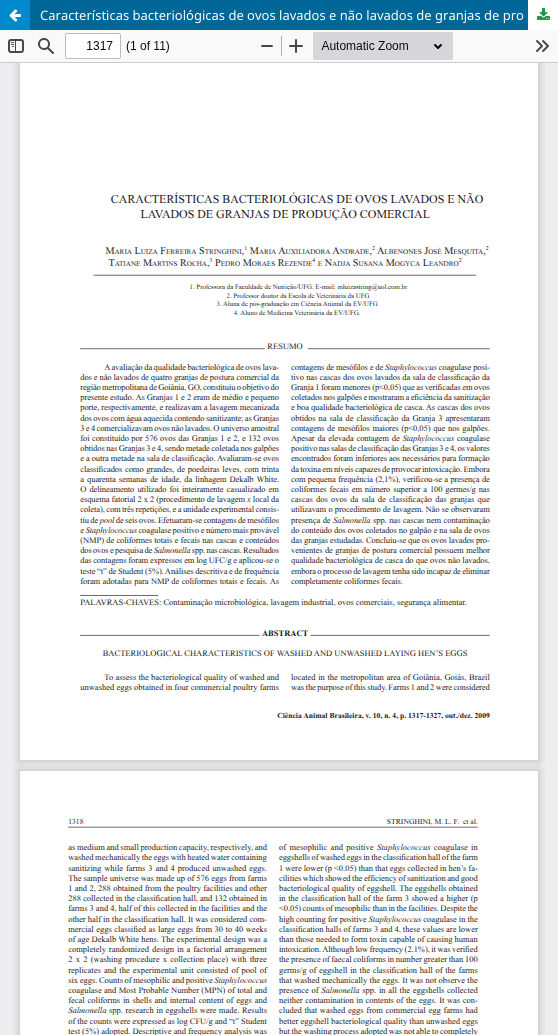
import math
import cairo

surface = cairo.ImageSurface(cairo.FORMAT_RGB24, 558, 1035)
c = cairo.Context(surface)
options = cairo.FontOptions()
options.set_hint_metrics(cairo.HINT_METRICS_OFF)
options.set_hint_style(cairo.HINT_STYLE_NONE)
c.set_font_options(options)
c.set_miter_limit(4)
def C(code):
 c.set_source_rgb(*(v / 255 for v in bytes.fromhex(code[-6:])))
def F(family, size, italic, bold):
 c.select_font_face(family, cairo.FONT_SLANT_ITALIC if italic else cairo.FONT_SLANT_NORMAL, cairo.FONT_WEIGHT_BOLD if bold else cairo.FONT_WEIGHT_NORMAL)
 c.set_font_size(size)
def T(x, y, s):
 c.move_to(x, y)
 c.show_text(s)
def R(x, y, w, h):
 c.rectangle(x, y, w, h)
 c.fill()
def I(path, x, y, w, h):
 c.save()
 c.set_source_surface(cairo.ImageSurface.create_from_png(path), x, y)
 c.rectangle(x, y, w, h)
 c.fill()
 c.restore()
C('ffffff')
c.paint()
C('006798')
R(30,0,498,30)
C('008acb')
R(0,0,30,30)
I('1.png',9,9,12,13)
F('Noto Sans',13,0,0)
C('ffffff')
T(40,20,'Características bacteriológicas de ovos lavados e não lavados de granjas de pro')
I('2.png',537,8,13,12)
I('3.png',0,30,558,1005)
surface.write_to_png('o.png')
